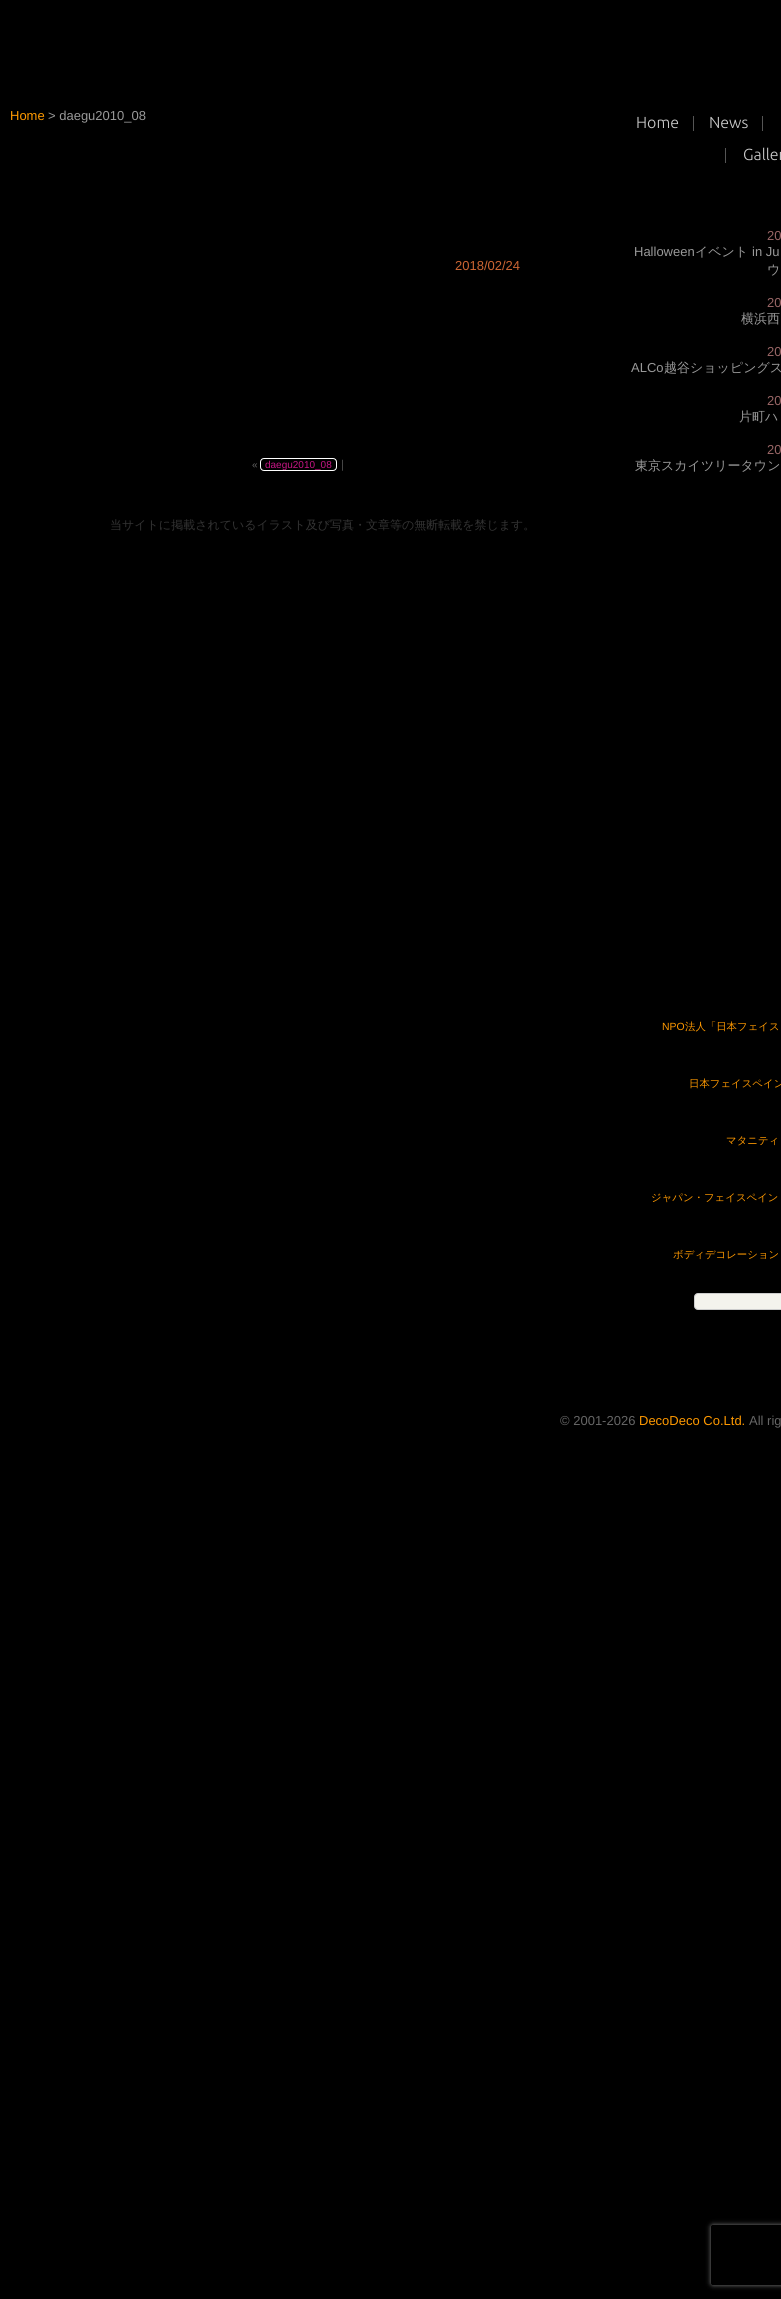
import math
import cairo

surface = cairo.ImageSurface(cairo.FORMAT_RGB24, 781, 2299)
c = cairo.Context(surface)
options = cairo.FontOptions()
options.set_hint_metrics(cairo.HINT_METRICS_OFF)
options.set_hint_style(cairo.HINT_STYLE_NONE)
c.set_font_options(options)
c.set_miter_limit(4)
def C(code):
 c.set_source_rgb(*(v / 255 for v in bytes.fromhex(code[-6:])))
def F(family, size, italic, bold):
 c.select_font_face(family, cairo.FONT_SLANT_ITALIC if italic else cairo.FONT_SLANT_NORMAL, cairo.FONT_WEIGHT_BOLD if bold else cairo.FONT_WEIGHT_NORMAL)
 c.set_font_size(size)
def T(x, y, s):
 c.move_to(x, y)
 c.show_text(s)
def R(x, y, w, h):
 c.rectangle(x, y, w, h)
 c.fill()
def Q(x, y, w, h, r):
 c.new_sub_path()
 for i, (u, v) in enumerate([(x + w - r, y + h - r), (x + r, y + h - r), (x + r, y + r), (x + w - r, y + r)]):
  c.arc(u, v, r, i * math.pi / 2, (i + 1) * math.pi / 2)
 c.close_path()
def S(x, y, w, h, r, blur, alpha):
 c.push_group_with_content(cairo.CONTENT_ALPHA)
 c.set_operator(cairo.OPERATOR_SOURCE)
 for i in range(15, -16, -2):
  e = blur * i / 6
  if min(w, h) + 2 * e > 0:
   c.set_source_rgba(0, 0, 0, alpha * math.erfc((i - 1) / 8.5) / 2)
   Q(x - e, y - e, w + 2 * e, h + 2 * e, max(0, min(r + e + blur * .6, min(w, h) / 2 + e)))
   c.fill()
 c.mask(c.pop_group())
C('000000')
c.paint()
F('Liberation Sans',13,0,0)
C('ff9900')
T(10,120,'Home')
C('999999')
T(48,120,'> daegu2010_08')
C('cc6633')
T(455,270,'2018/02/24')
F('Liberation Sans',10,0,0)
C('666666')
T(252,468,'«')
Q(260.5,458.5,76,12,3.5)
C('ffffff')
c.set_line_width(1)
c.stroke()
C('c71585')
T(265,468,'daegu2010_08')
F('WenQuanYi Zen Hei Medium',11,0,0)
C('666666')
T(337,468,'｜')
F('WenQuanYi Zen Hei Medium',12,0,0)
C('333333')
T(110,529,'当サイトに掲載されているイラスト及び写真・文章等の無断転載を禁じます。')
F('Ubuntu Light',16,0,0)
C('cccccc')
T(636,128,'Home')
C('555555')
R(693,116,1,15)
C('cccccc')
T(709,128,'News')
C('555555')
R(762,116,1,15)
R(725,148,1,15)
C('cccccc')
T(743,160,'Galler')
F('Liberation Sans',13,0,0)
C('996666')
T(767,240,'20')
C('999999')
T(634,256,'Halloween')
F('WenQuanYi Zen Hei Medium',13,0,0)
T(695,256,'イベント')
F('Liberation Sans',13,0,0)
T(752,256,'in Ju')
F('WenQuanYi Zen Hei Medium',13,0,0)
T(767,274,'ウ')
F('Liberation Sans',13,0,0)
C('996666')
T(767,307,'20')
F('WenQuanYi Zen Hei Medium',13,0,0)
C('999999')
T(741,323,'横浜西')
F('Liberation Sans',13,0,0)
C('996666')
T(767,356,'20')
C('999999')
T(631,372,'ALCo')
F('WenQuanYi Zen Hei Medium',13,0,0)
T(664,372,'越谷ショッピングス')
F('Liberation Sans',13,0,0)
C('996666')
T(767,405,'20')
F('WenQuanYi Zen Hei Medium',13,0,0)
C('999999')
T(739,421,'片町ハ')
F('Liberation Sans',13,0,0)
C('996666')
T(767,454,'20')
F('WenQuanYi Zen Hei Medium',13,0,0)
C('999999')
T(635,470,'東京スカイツリータウン')
F('Liberation Sans',10.4,0,0)
C('ff9900')
T(662,1030,'NPO')
F('WenQuanYi Zen Hei Medium',10.4,0,0)
T(685,1030,'法人「日本フェイス')
T(689,1087,'日本フェイスペイン')
T(726,1144,'マタニティ')
T(651,1201,'ジャパン・フェイスペイン')
T(673,1258,'ボディデコレーション')
C('f4f3ed')
Q(694.5,1293.5,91,16,3.5)
c.fill_preserve()
C('cccccc')
c.stroke()
F('Liberation Sans',13,0,0)
C('666666')
T(560,1425,'© 2001-2026')
C('ff9900')
T(639,1425,'DecoDeco Co.Ltd.')
C('666666')
T(749,1425,'All rig')
c.save()
c.set_fill_rule(cairo.FILL_RULE_EVEN_ODD)
c.new_path()
c.move_to(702,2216)
c.line_to(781,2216)
c.line_to(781,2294)
c.line_to(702,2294)
c.close_path()
c.move_to(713,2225)
c.line_to(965,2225)
c.curve_to(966,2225,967,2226,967,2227)
c.line_to(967,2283)
c.curve_to(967,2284,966,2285,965,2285)
c.line_to(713,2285)
c.curve_to(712,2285,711,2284,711,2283)
c.line_to(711,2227)
c.curve_to(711,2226,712,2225,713,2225)
c.close_path()
c.clip()
C('808080')
S(711,2225,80,60,2,2.5,1)
c.restore()
surface.write_to_png('o.png')
